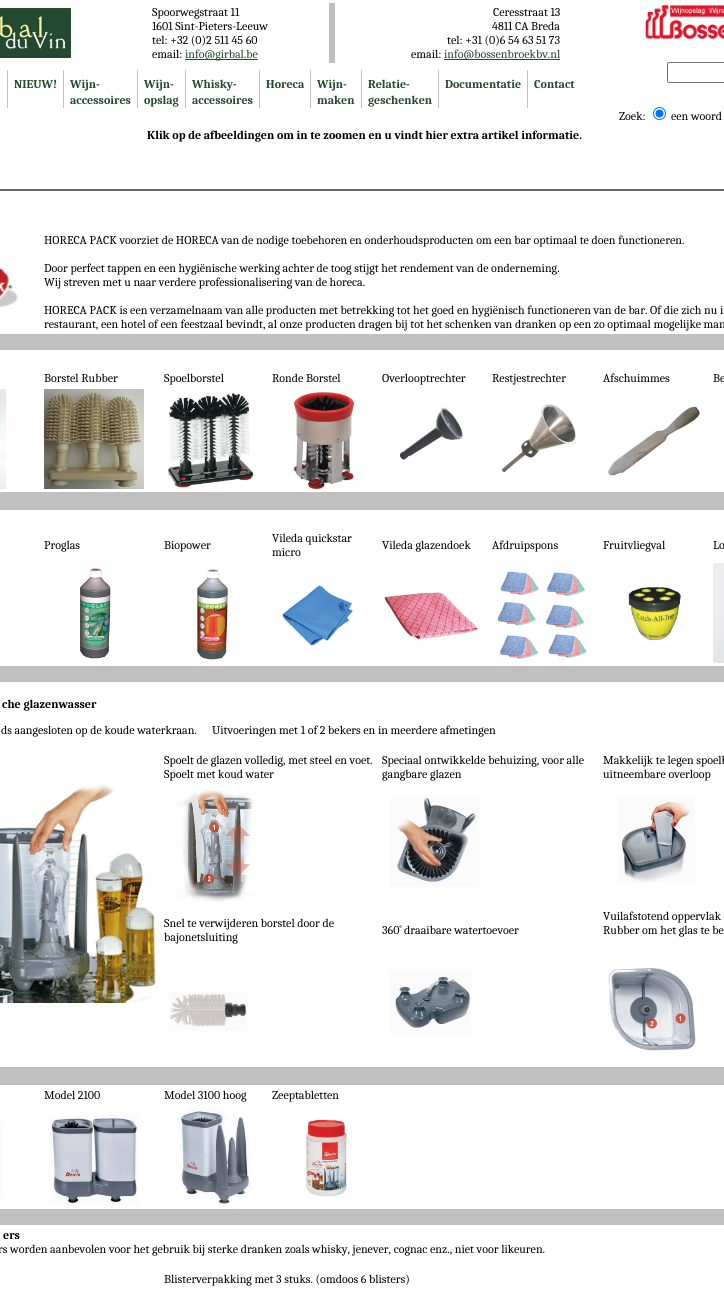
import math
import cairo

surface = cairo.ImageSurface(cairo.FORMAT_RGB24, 724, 1290)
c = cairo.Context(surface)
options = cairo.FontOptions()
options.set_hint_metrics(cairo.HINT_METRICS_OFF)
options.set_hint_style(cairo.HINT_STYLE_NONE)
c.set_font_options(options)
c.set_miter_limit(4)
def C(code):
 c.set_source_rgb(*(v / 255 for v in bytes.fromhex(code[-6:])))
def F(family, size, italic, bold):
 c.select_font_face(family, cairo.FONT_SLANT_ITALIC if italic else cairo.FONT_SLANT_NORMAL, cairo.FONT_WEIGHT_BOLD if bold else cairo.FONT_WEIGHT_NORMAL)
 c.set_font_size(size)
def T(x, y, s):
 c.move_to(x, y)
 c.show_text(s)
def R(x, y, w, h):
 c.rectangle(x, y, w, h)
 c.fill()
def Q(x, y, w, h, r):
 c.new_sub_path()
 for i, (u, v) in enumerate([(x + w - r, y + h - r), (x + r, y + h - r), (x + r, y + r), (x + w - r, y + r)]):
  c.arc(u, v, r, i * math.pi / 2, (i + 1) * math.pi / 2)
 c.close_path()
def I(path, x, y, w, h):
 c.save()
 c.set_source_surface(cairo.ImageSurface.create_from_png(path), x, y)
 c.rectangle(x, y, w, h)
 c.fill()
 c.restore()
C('ffffff')
c.paint()
I('1.png',0,8,71,50)
F('Caladea',12,0,0)
C('000000')
T(152,16,'Spoorwegstraat 11')
T(152,30,'1601 Sint-Pieters-Leeuw')
T(152,44,'tel: +32 (0)2 511 45 60')
T(152,58,'email:')
C('234930')
R(185,59,73,1)
T(185,58,'info@girbal.be')
C('c0c0c0')
R(329,3,6,60)
C('000000')
T(493,16,'Ceresstraat 13')
T(492,30,'4811 CA Breda')
T(447,44,'tel: +31 (0)6 54 63 51 73')
T(411,58,'email:')
C('234930')
R(444,59,116,1)
T(444,58,'info@bossenbroekbv.nl')
I('2.png',645,5,79,34)
C('c0c0c0')
R(7,70,1,38)
F('Caladea',12,0,1)
C('234930')
T(14,88,'NIEUW!')
C('c0c0c0')
R(63,70,1,38)
C('234930')
T(70,88,'Wijn-')
T(70,104,'accessoires')
C('c0c0c0')
R(137,70,1,38)
C('234930')
T(144,88,'Wijn-')
T(144,104,'opslag')
C('c0c0c0')
R(185,70,1,38)
C('234930')
T(192,88,'Whisky-')
T(192,104,'accessoires')
C('c0c0c0')
R(259,70,1,38)
C('234930')
T(266,88,'Horeca')
C('c0c0c0')
R(310,70,1,38)
C('234930')
T(317,88,'Wijn-')
T(317,104,'maken')
C('c0c0c0')
R(361,70,1,38)
C('234930')
T(368,88,'Relatie-')
T(368,104,'geschenken')
C('c0c0c0')
R(438,70,1,38)
C('234930')
T(445,88,'Documentatie')
C('c0c0c0')
R(527,70,1,38)
C('234930')
T(534,88,'Contact')
Q(667.5,62.5,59,20,1.5)
C('767676')
c.set_line_width(1)
c.stroke()
F('Caladea',12,0,0)
C('000000')
T(619,120,'Zoek:')
c.new_path()
c.arc(659.5,113.5,6,0,2 * math.pi)
C('0075ff')
c.stroke()
c.arc(659.5,113.5,4,0,2 * math.pi)
c.fill()
C('000000')
T(671,120,'een woord')
C('666666')
R(0,189,724,2)
F('Caladea',12,0,1)
C('000000')
T(147,139,'Klik op de afbeeldingen om in te zoomen en u vindt hier extra artikel informatie.')
I('3.png',0,267,18,41)
F('Caladea',12,0,0)
T(44,244,'HORECA PACK voorziet de HORECA van de nodige toebehoren en onderhoudsproducten om een bar optimaal te doen functioneren.')
T(44,272,'Door perfect tappen en een hygiënische werking achter de toog stijgt het rendement van de onderneming.')
T(44,286,'Wij streven met u naar verdere professionalisering van de horeca.')
T(44,314,'HORECA PACK is een verzamelnaam van alle producten met betrekking tot het goed en hygiënisch functioneren van de bar. Of die zich nu i')
T(44,328,'restaurant, een hotel of een feestzaal bevindt, al onze producten dragen bij tot het schenken van dranken op een zo optimaal mogelijke man')
C('c0c0c0')
R(0,334,724,16)
C('000000')
T(44,382,'Borstel Rubber')
T(164,382,'Spoelborstel')
T(272,382,'Ronde Borstel')
T(382,382,'Overlooptrechter')
T(492,382,'Restjestrechter')
T(603,382,'Afschuimmes')
T(713,382,'Be')
I('4.png',0,389,6,100)
I('5.png',44,389,100,100)
I('6.png',166,393,88,95)
I('7.png',291,392,64,97)
I('8.png',399,407,64,53)
I('9.png',501,404,76,69)
I('10.png',608,406,92,70)
C('c0c0c0')
R(0,492,724,18)
C('000000')
T(44,549,'Proglas')
T(164,549,'Biopower')
T(272,542,'Vileda quickstar')
T(272,556,'micro')
T(382,549,'Vileda glazendoek')
T(492,549,'Afdruipspons')
T(603,549,'Fruitvliegval')
T(713,549,'Lo')
I('11.png',80,568,31,91)
I('12.png',197,569,31,91)
I('13.png',282,585,71,61)
I('14.png',384,592,94,48)
I('15.png',497,571,90,88)
I('16.png',628,587,53,54)
I('17.png',713,563,11,100)
C('c0c0c0')
R(0,666,724,16)
F('Caladea',12,0,1)
C('000000')
T(2,708,'che glazenwasser')
F('Caladea',12,0,0)
T(1,734,'ds aangesloten op de koude waterkraan.')
T(212,734,'Uitvoeringen met 1 of 2 bekers en in meerdere afmetingen')
T(164,764,'Spoelt de glazen volledig, met steel en voet.')
T(164,778,'Spoelt met koud water')
T(382,764,'Speciaal ontwikkelde behuizing, voor alle')
T(382,778,'gangbare glazen')
T(603,764,'Makkelijk te legen spoelb')
T(603,778,'uitneembare overloop')
I('18.png',0,783,156,220)
I('19.png',164,789,95,115)
I('20.png',390,797,89,90)
I('21.png',618,797,77,86)
T(164,927,'Snel te verwijderen borstel door de')
T(164,941,'bajonetsluiting')
T(382,934,'360˚ draaibare watertoevoer')
T(603,920,'Vuilafstotend oppervlak')
T(603,934,'Rubber om het glas te be')
I('22.png',169,991,78,40)
I('23.png',390,970,81,65)
I('24.png',608,968,88,83)
C('c0c0c0')
R(0,1067,724,18)
C('000000')
T(44,1099,'Model 2100')
T(164,1099,'Model 3100 hoog')
T(272,1099,'Zeeptabletten')
C('fafbfa')
R(0,1123,2,75)
I('25.png',49,1115,90,90)
I('26.png',177,1107,75,98)
I('27.png',306,1119,41,78)
C('c0c0c0')
R(0,1209,724,16)
F('Caladea',12,0,1)
C('000000')
T(3,1239,'ers')
F('Caladea',12,0,0)
T(-2,1253,'rs worden aanbevolen voor het gebruik bij sterke dranken zoals whisky, jenever, cognac enz., niet voor likeuren.')
T(164,1283,'Blisterverpakking met 3 stuks. (omdoos 6 blisters)')
surface.write_to_png('o.png')
